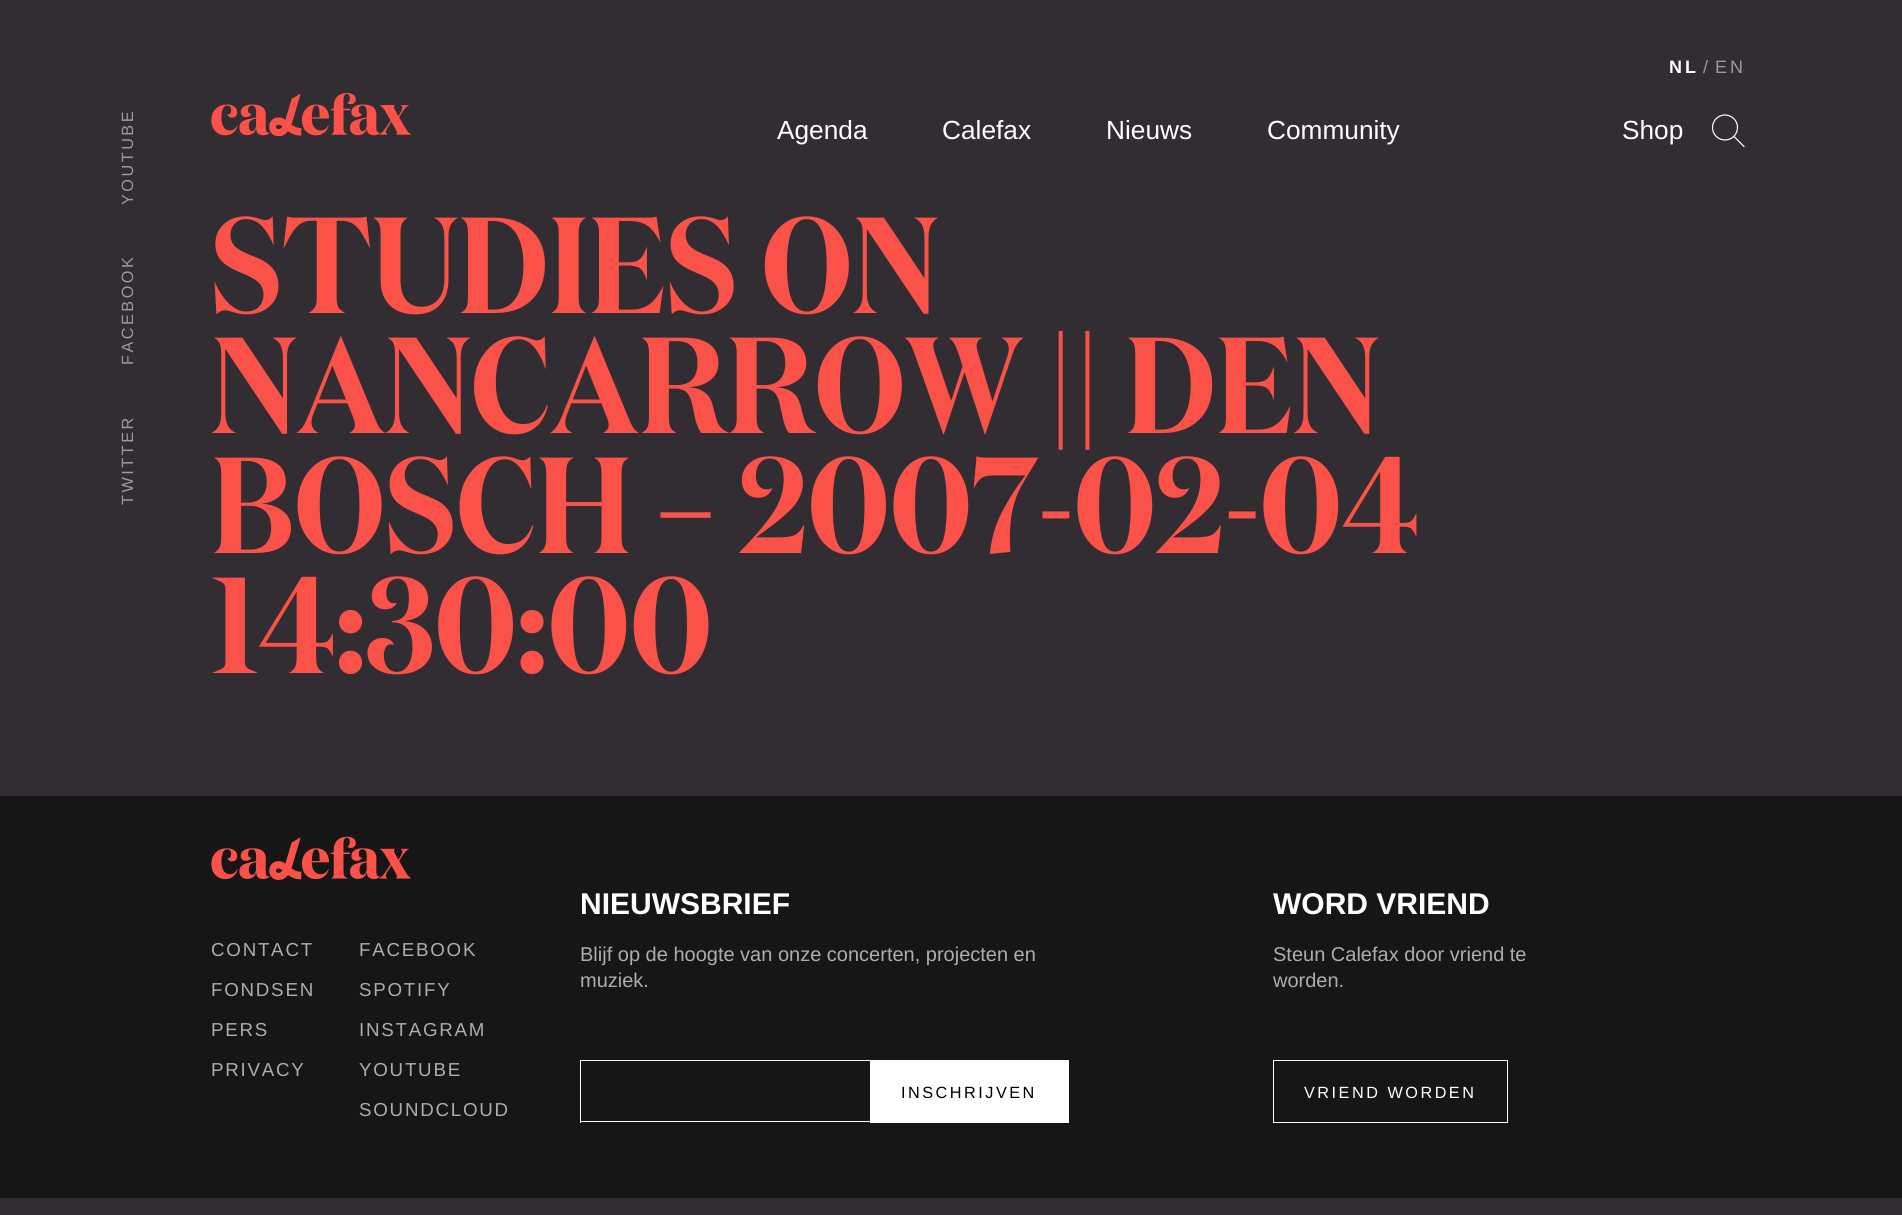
import math
import cairo

surface = cairo.ImageSurface(cairo.FORMAT_RGB24, 1902, 1215)
c = cairo.Context(surface)
options = cairo.FontOptions()
options.set_hint_metrics(cairo.HINT_METRICS_OFF)
options.set_hint_style(cairo.HINT_STYLE_NONE)
c.set_font_options(options)
c.set_miter_limit(4)
def C(code):
 c.set_source_rgb(*(v / 255 for v in bytes.fromhex(code[-6:])))
def F(family, size, italic, bold):
 c.select_font_face(family, cairo.FONT_SLANT_ITALIC if italic else cairo.FONT_SLANT_NORMAL, cairo.FONT_WEIGHT_BOLD if bold else cairo.FONT_WEIGHT_NORMAL)
 c.set_font_size(size)
def T(x, y, s):
 c.move_to(x, y)
 c.show_text(s)
def L(x, y, s, letter, word):
 c.move_to(x, y)
 for ch in s:
  c.show_text(ch)
  c.rel_move_to(letter + word * (ch == ' '), 0)
def R(x, y, w, h):
 c.rectangle(x, y, w, h)
 c.fill()
def I(path, x, y, w, h):
 c.save()
 c.set_source_surface(cairo.ImageSurface.create_from_png(path), x, y)
 c.rectangle(x, y, w, h)
 c.fill()
 c.restore()
C('322c33')
c.paint()
F('Liberation Sans',18,0,1)
C('ffffff')
L(1669,73,'NL',3,0)
F('Liberation Sans',18,0,0)
C('9b9b9b')
L(1703,73,'/',3,0)
L(1715,73,'EN',3,0)
F('Liberation Sans',16.25,0,0)
c.save()
c.translate(133,205)
c.rotate(-90 * math.pi / 180)
L(0,0,'YOUTUBE',2.5,0)
c.restore()
c.save()
c.translate(133,365)
c.rotate(-90 * math.pi / 180)
L(0,0,'FACEBOOK',2.5,0)
c.restore()
c.save()
c.translate(133,505)
c.rotate(-90 * math.pi / 180)
L(0,0,'TWITTER',2.5,0)
c.restore()
I('1.png',211,93,200,43)
F('Liberation Sans',26.25,0,0)
C('ffffff')
T(777,139,'Agenda')
T(942,139,'Calefax')
T(1106,139,'Nieuws')
T(1267,139,'Community')
T(1622,139,'Shop')
c.new_path()
c.arc(1725,127.5,12.5,0,2 * math.pi)
c.set_line_width(1.2)
c.stroke()
c.new_path()
c.move_to(1734,136.5)
c.line_to(1744,146.5)
c.set_line_cap(cairo.LINE_CAP_SQUARE)
c.stroke()
F('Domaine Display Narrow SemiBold',136.25,0,0)
C('fa5149')
T(211,313,'STUDIES ON')
T(211,433,'NANCARROW || DEN')
T(211,553,'BOSCH – 2007-02-04')
T(211,673,'14:30:00')
C('161616')
R(0,796,1902,402)
I('2.png',211,836,200,44)
F('Liberation Sans',18.75,0,0)
C('adadad')
L(211,956,'CONTACT',1.75,0)
L(211,996,'FONDSEN',1.75,0)
L(211,1036,'PERS',1.75,0)
L(211,1076,'PRIVACY',1.75,0)
L(359,956,'FACEBOOK',1.75,0)
L(359,996,'SPOTIFY',1.75,0)
L(359,1036,'INSTAGRAM',1.75,0)
L(359,1076,'YOUTUBE',1.75,0)
L(359,1116,'SOUNDCLOUD',1.75,0)
F('Liberation Sans',30,0,1)
C('ffffff')
T(580,914,'NIEUWSBRIEF')
F('Liberation Sans',20,0,0)
C('adadad')
T(580,961,'Blijf op de hoogte van onze concerten, projecten en')
T(580,987,'muziek.')
C('ffffff')
R(580,1060,290,1)
R(580,1121,290,1)
R(580,1060,1,63)
R(870,1060,199,63)
F('Liberation Sans',16.25,0,0)
C('000000')
L(901,1098,'INSCHRIJVEN',2.5,0)
F('Liberation Sans',30,0,1)
C('ffffff')
T(1273,914,'WORD VRIEND')
F('Liberation Sans',20,0,0)
C('adadad')
T(1273,961,'Steun Calefax door vriend te')
T(1273,987,'worden.')
c.rectangle(1273.5,1060.5,234,62)
C('ffffff')
c.set_line_width(1)
c.set_line_cap(cairo.LINE_CAP_BUTT)
c.stroke()
F('Liberation Sans',16.25,0,0)
L(1304,1098,'VRIEND WORDEN',2.5,0)
surface.write_to_png('o.png')
